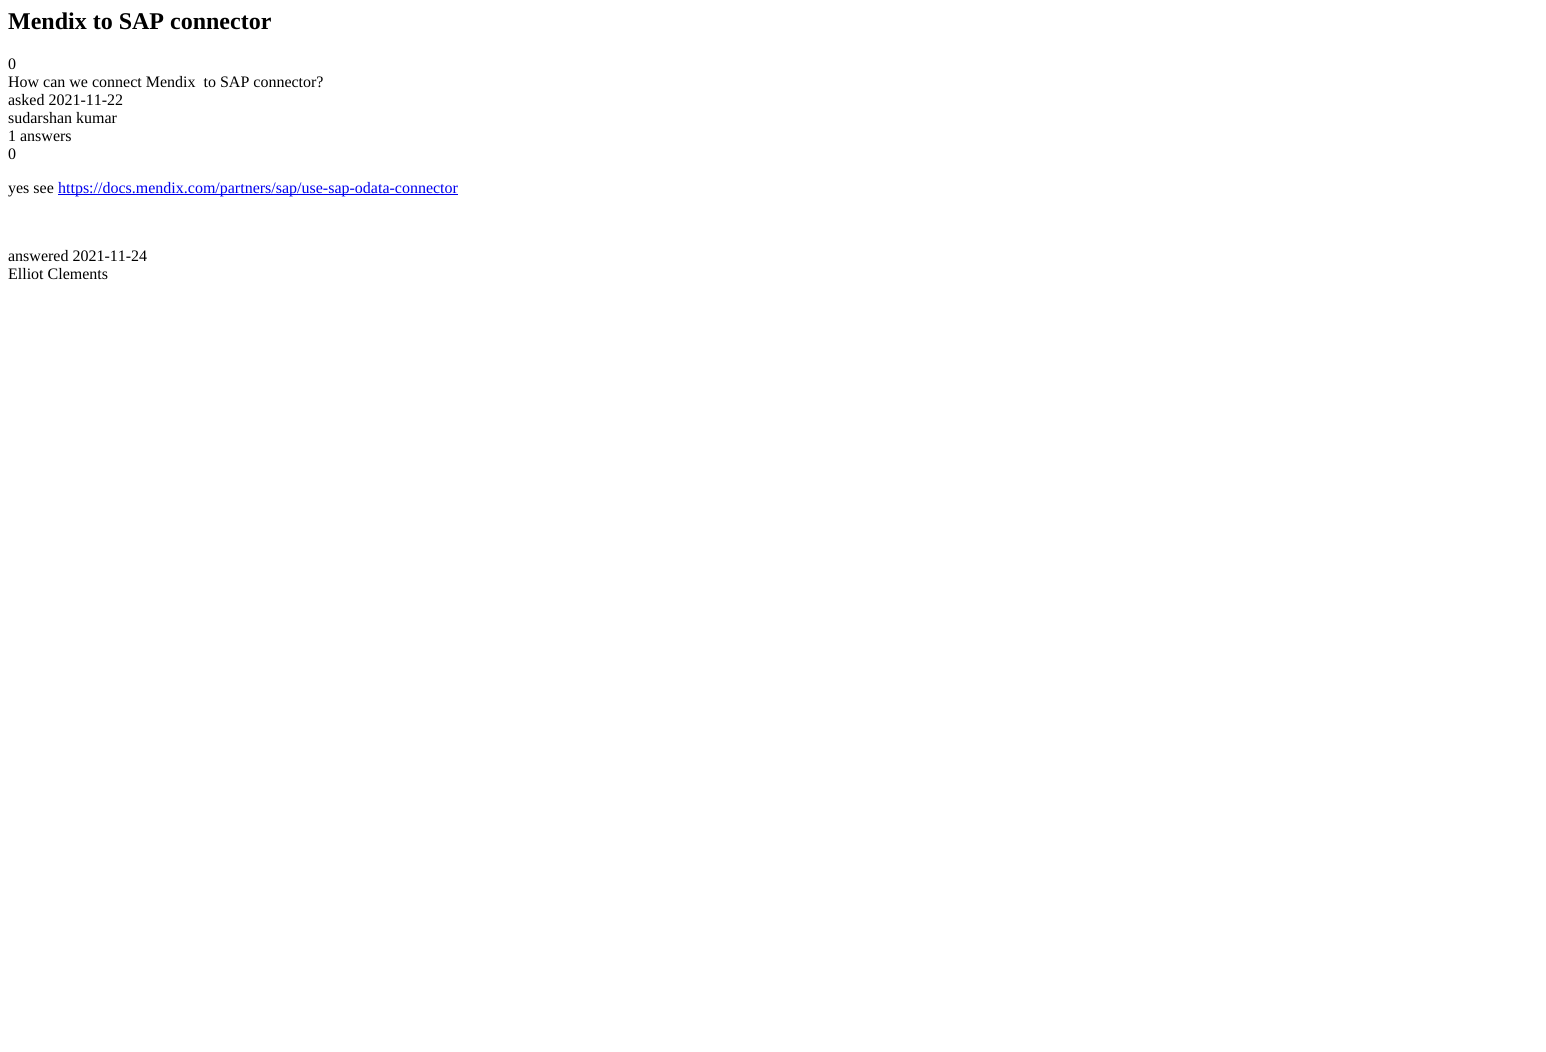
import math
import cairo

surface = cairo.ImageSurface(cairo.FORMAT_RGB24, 1546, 1052)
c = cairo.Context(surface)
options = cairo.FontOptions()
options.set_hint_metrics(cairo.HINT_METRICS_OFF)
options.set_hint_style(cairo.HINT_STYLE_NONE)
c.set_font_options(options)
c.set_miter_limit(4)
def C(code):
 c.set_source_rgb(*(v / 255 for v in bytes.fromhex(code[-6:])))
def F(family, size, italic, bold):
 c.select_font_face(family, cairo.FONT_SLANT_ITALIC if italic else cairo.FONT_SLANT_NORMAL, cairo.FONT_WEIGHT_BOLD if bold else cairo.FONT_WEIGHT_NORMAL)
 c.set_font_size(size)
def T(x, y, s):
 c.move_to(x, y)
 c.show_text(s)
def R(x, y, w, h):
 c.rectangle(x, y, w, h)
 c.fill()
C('ffffff')
c.paint()
F('Liberation Serif',24,0,1)
C('000000')
T(8,29,'Mendix to SAP connector')
F('Liberation Serif',16,0,0)
T(8,69,'0')
T(8,87,'How can we connect Mendix  to SAP connector?')
T(8,105,'asked 2021-11-22')
T(8,123,'sudarshan kumar')
T(8,141,'1 answers')
T(8,159,'0')
T(8,193,'yes see')
C('0000ee')
R(58,194,400,1)
T(58,193,'https://docs.mendix.com/partners/sap/use-sap-odata-connector')
C('000000')
T(8,261,'answered 2021-11-24')
T(8,279,'Elliot Clements')
surface.write_to_png('o.png')
